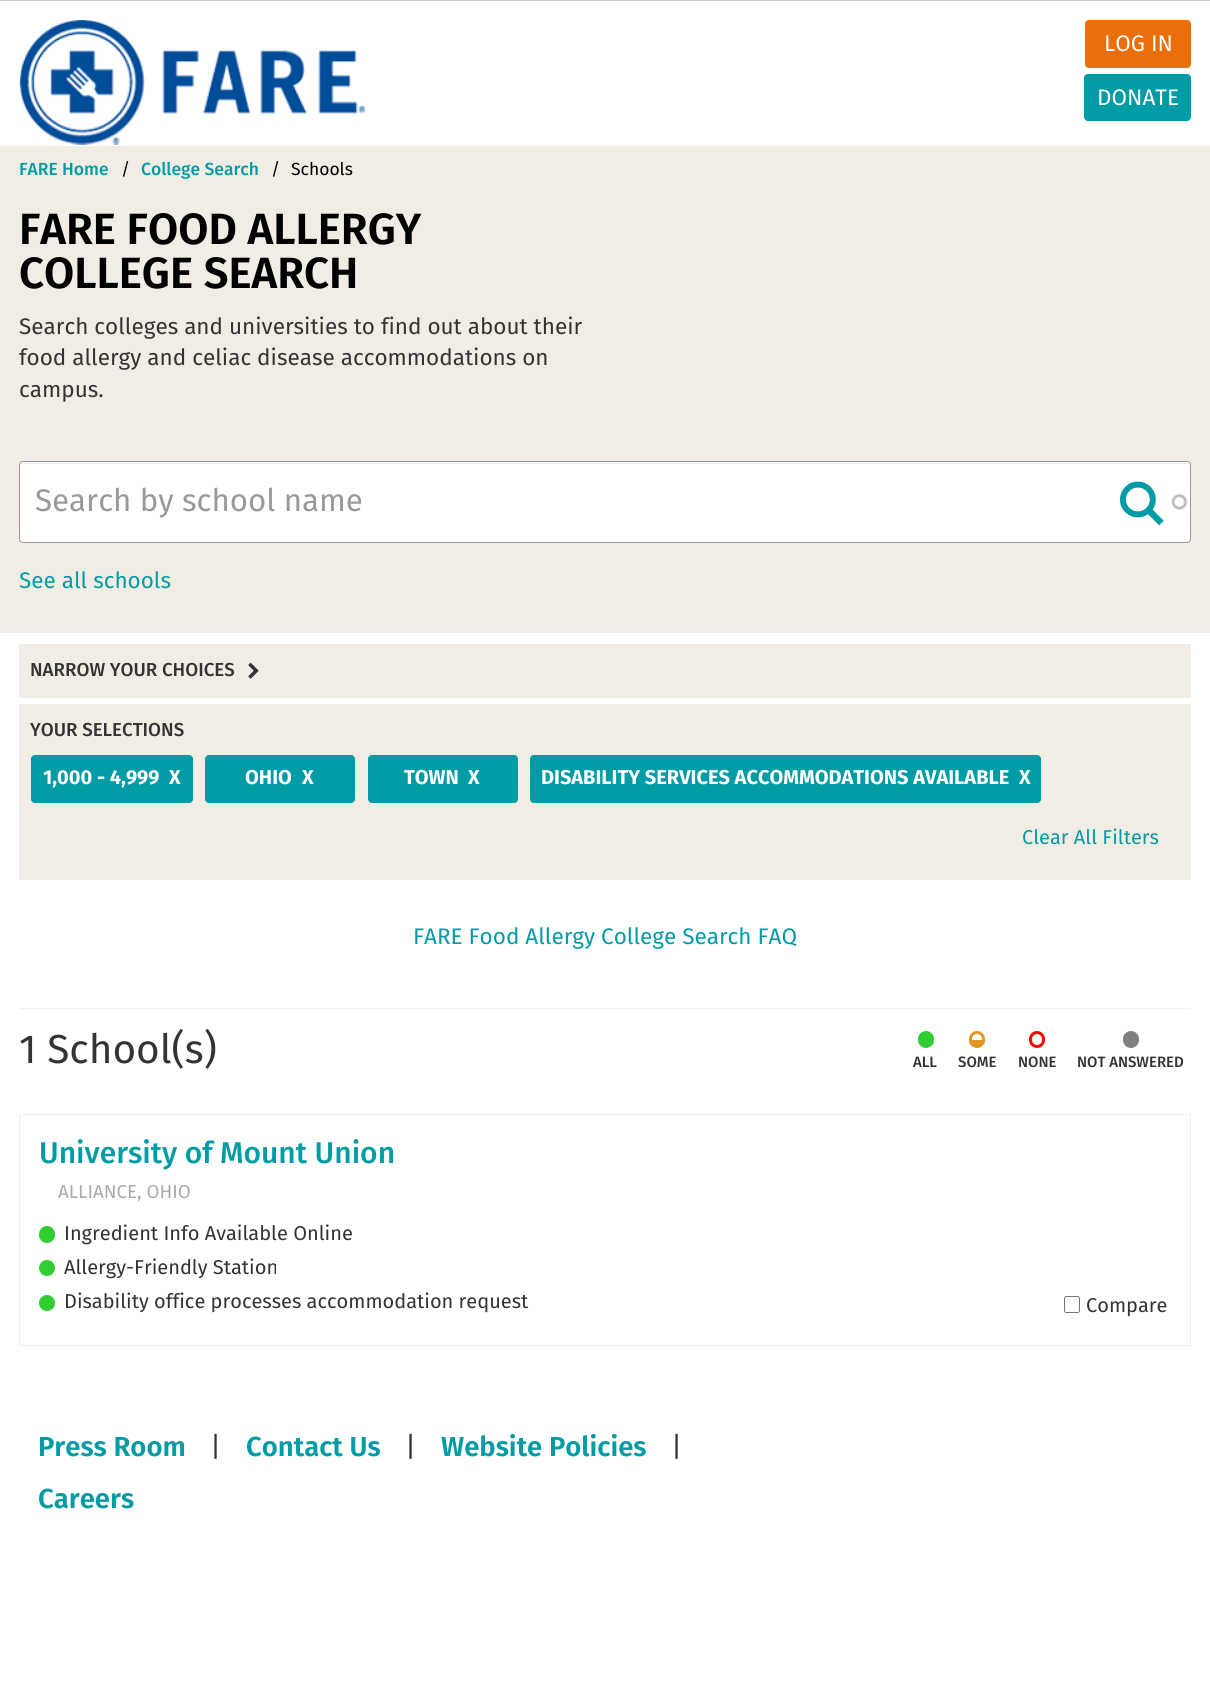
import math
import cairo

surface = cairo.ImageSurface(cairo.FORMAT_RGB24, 1210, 1702)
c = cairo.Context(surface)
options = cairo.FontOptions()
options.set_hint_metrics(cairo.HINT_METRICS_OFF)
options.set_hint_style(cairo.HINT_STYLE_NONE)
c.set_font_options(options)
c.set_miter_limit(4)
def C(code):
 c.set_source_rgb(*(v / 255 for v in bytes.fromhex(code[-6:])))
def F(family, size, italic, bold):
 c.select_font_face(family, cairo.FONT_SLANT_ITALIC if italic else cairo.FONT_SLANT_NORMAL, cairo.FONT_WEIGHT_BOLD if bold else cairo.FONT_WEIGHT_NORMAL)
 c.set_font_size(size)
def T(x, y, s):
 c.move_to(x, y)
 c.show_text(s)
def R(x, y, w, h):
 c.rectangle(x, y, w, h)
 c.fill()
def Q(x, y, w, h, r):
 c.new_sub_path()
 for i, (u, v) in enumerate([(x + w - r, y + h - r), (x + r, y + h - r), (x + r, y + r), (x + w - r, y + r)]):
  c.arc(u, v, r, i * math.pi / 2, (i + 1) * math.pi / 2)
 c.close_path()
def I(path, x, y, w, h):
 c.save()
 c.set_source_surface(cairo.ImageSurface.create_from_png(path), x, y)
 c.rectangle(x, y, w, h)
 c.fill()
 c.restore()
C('ffffff')
c.paint()
C('cccccc')
R(0,0,1210,1)
I('1.png',19,20,346,125)
C('e96d09')
Q(1085.5,20.5,105,47,3.5)
c.fill_preserve()
c.set_line_width(1)
c.stroke()
F('Fira Sans',22.5,0,0)
C('ffffff')
T(1104,51,'LOG IN')
C('009ca6')
Q(1084.5,74.5,106,46,3.5)
c.fill_preserve()
c.stroke()
C('ffffff')
T(1097,105,'DONATE')
C('f1ede4')
R(0,146,1210,487)
F('Fira Sans Medium',17.5,0,0)
C('009ca6')
T(19,175,'FARE Home')
F('Fira Sans',17.5,0,0)
C('000000')
T(121,175,'/')
F('Fira Sans Medium',17.5,0,0)
C('009ca6')
T(141,175,'College Search')
F('Fira Sans',17.5,0,0)
C('000000')
T(271,175,'/')
T(291,175,'Schools')
F('Fira Sans SemiBold',43.75,0,0)
T(19,244,'FARE FOOD ALLERGY')
T(19,288,'COLLEGE SEARCH')
F('Fira Sans',22.5,0,0)
C('333333')
T(19,334,'Search colleges and universities to find out about their')
T(19,365,'food allergy and celiac disease accommodations on')
T(19,397,'campus.')
C('ffffff')
Q(19,461,1172,82,4)
c.fill()
I('2.png',1171,493,17,17)
C('ececec')
c.new_path()
c.move_to(22,464)
c.line_to(1188,464)
c.curve_to(1189,464,1190,465,1190,466)
c.curve_to(1190,464,1189,463,1188,463)
c.line_to(22,463)
c.curve_to(21,463,20,464,20,466)
c.curve_to(20,465,21,464,22,464)
c.close_path()
c.fill()
Q(19.5,461.5,1171,81,3.5)
C('999999')
c.stroke()
F('Fira Sans',31.25,0,0)
T(35,511,'Search by school name')
I('3.png',1120,481,44,45)
F('Fira Sans',22.5,0,0)
C('009ca6')
T(19,588,'See all schools')
C('f1ede4')
R(19,644,1172,54)
F('Fira Sans Medium',18.75,0,0)
C('333333')
T(30,676,'NARROW YOUR CHOICES')
I('4.png',248,662,11,17)
C('f1ede4')
R(19,704,1172,176)
C('333333')
T(30,736,'YOUR SELECTIONS')
C('009ca6')
Q(31.5,755.5,161,47,3.5)
c.fill_preserve()
c.stroke()
F('Fira Sans',20,0,1)
C('ffffff')
T(43,784,'1,000 - 4,999')
T(169,784,'X')
C('009ca6')
Q(205.5,755.5,149,47,3.5)
c.fill_preserve()
c.stroke()
C('ffffff')
T(245,784,'OHIO')
T(302,784,'X')
C('009ca6')
Q(368.5,755.5,149,47,3.5)
c.fill_preserve()
c.stroke()
C('ffffff')
T(404,784,'TOWN')
T(468,784,'X')
C('009ca6')
Q(530.5,755.5,510,47,3.5)
c.fill_preserve()
c.stroke()
C('ffffff')
T(541,784,'DISABILITY SERVICES ACCOMMODATIONS AVAILABLE')
T(1019,784,'X')
F('Fira Sans',20,0,0)
C('009ca6')
T(1022,844,'Clear All Filters')
F('Fira Sans',22.5,0,0)
T(413,944,'FARE Food Allergy College Search FAQ')
C('efefef')
R(19,1008,1172,1)
F('Fira Sans',40.5,0,0)
C('333333')
T(19,1063,'1 School(s)')
C('32cd32')
Q(918,1031,16,17,8)
c.fill()
F('Fira Sans Medium',15,0,0)
C('333333')
T(913,1067,'ALL')
c.save()
Q(969,1031,16,17,8)
c.clip()
C('e59524')
R(969,1040,16,5)
c.restore()
Q(970.5,1032.5,13,14,6.5)
C('e59524')
c.set_line_width(3)
c.stroke()
C('333333')
T(958,1067,'SOME')
Q(1030.5,1032.5,13,14,6.5)
C('ff0000')
c.stroke()
C('333333')
T(1018,1067,'NONE')
C('808080')
Q(1123,1031,16,17,8)
c.fill()
C('333333')
T(1077,1067,'NOT ANSWERED')
c.rectangle(19.5,1114.5,1171,231)
C('eeeeee')
c.set_line_width(1)
c.stroke()
F('Fira Sans Medium',30,0,0)
C('009ca6')
T(39,1163,'University of Mount Union')
F('Fira Sans',18.75,0,0)
C('aaaaaa')
T(58,1198,'ALLIANCE, OHIO')
C('32cd32')
Q(39,1226,16,17,8)
c.fill()
F('Fira Sans',20,0,0)
C('333333')
T(64,1240,'Ingredient Info Available Online')
C('32cd32')
c.new_path()
c.arc(47,1268,8,0,2 * math.pi)
c.fill()
C('333333')
T(64,1274,'Allergy-Friendly Station')
C('32cd32')
c.new_path()
c.arc(47,1303,8,0,2 * math.pi)
c.fill()
C('333333')
T(64,1308,'Disability office processes accommodation request')
Q(1064.5,1296.5,15,16,2)
C('767676')
c.stroke()
C('333333')
T(1086,1312,'Compare')
F('Fira Sans SemiBold',27.5,0,0)
C('009ca6')
T(38,1456,'Press Room')
F('Fira Sans',27.5,0,0)
C('333333')
T(210,1456,'|')
F('Fira Sans SemiBold',27.5,0,0)
C('009ca6')
T(246,1456,'Contact Us')
F('Fira Sans',27.5,0,0)
C('333333')
T(405,1456,'|')
F('Fira Sans SemiBold',27.5,0,0)
C('009ca6')
T(441,1456,'Website Policies')
F('Fira Sans',27.5,0,0)
C('333333')
T(671,1456,'|')
F('Fira Sans SemiBold',27.5,0,0)
C('009ca6')
T(38,1508,'Careers')
surface.write_to_png('o.png')
